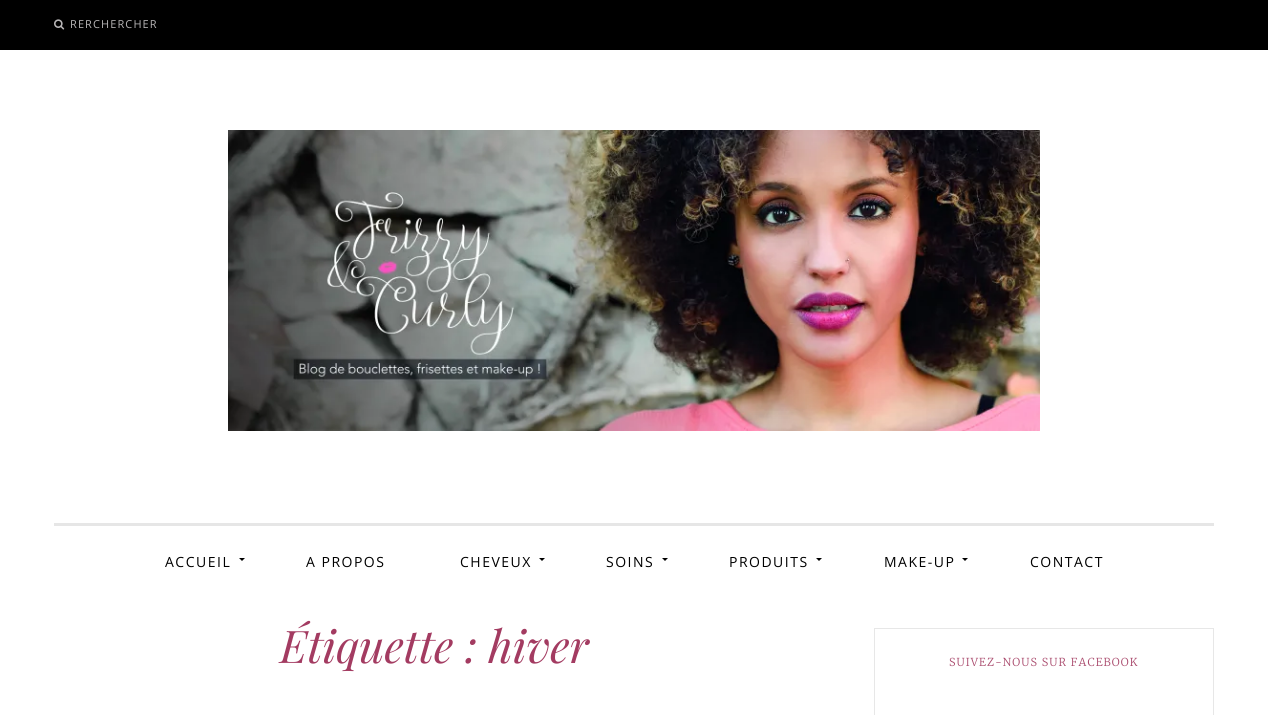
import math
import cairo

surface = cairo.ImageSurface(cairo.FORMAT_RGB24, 1268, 715)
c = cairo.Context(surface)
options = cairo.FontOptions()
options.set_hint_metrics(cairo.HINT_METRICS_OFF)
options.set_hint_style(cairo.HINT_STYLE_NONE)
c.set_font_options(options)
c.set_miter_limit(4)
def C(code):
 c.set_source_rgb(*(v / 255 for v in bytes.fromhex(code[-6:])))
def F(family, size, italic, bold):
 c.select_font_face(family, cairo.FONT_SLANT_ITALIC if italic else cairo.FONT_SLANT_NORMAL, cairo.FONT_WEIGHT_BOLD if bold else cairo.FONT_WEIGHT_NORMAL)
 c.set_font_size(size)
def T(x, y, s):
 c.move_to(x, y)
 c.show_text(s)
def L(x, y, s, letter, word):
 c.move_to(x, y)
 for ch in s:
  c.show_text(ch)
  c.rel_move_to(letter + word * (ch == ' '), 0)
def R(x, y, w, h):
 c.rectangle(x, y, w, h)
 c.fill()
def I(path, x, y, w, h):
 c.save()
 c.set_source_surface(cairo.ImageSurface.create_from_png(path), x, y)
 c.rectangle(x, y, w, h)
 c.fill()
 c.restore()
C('ffffff')
c.paint()
C('000000')
R(0,0,1268,50)
I('1.png',54,19,11,11)
F('Open Sans',11,0,0)
C('b8b6b7')
L(70,28,'RERCHERCHER',1.1,0)
I('2.png',228,130,812,301)
C('e6e6e6')
R(54,523,1160,3)
F('Open Sans',14,0,0)
C('000000')
L(165,567,'ACCUEIL',1.5,0)
c.new_path()
c.move_to(239,558)
c.line_to(245,558)
c.line_to(242,561)
c.close_path()
c.fill()
L(306,567,'A PROPOS',1.5,0)
L(460,567,'CHEVEUX',1.5,0)
c.new_path()
c.move_to(539,558)
c.line_to(545,558)
c.line_to(542,561)
c.close_path()
c.fill()
L(606,567,'SOINS',1.5,0)
c.new_path()
c.move_to(662,558)
c.line_to(668,558)
c.line_to(665,561)
c.close_path()
c.fill()
L(729,567,'PRODUITS',1.5,0)
c.new_path()
c.move_to(816,558)
c.line_to(822,558)
c.line_to(819,561)
c.close_path()
c.fill()
L(884,567,'MAKE-UP',1.5,0)
c.new_path()
c.move_to(962,558)
c.line_to(968,558)
c.line_to(965,561)
c.close_path()
c.fill()
L(1030,567,'CONTACT',1.5,0)
F('Playfair Display',45,1,0)
C('a33b61')
T(280,663,'Étiquette : hiver')
c.rectangle(874.5,628.5,339,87)
C('e7e7e7')
c.set_line_width(1)
c.stroke()
F('Merriweather Light',11,0,0)
C('a8476a')
L(949,666,'SUIVEZ-NOUS SUR FACEBOOK',1.1,0)
surface.write_to_png('o.png')
